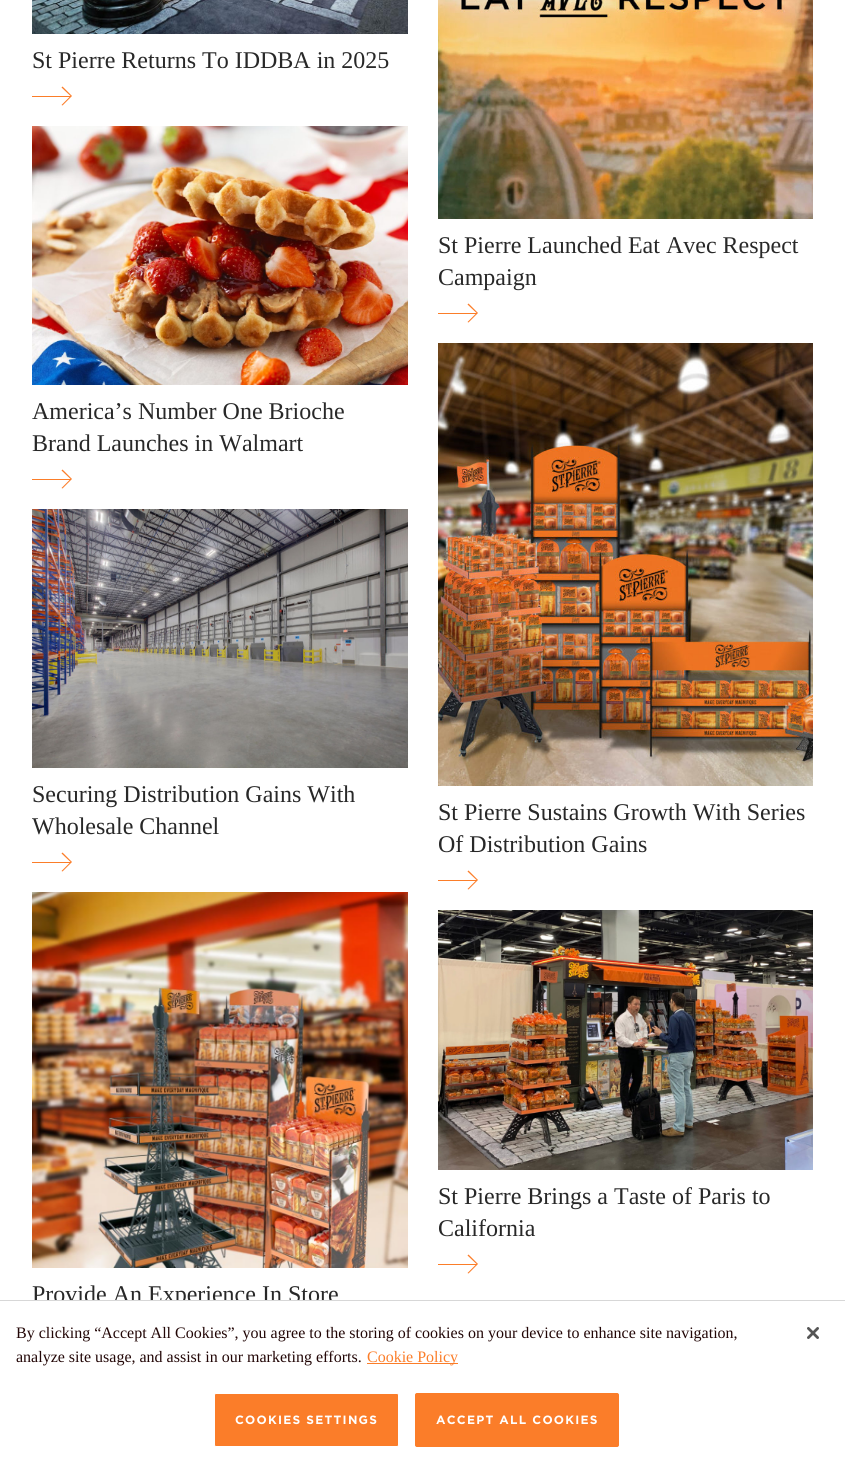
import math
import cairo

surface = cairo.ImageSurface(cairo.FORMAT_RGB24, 845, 1463)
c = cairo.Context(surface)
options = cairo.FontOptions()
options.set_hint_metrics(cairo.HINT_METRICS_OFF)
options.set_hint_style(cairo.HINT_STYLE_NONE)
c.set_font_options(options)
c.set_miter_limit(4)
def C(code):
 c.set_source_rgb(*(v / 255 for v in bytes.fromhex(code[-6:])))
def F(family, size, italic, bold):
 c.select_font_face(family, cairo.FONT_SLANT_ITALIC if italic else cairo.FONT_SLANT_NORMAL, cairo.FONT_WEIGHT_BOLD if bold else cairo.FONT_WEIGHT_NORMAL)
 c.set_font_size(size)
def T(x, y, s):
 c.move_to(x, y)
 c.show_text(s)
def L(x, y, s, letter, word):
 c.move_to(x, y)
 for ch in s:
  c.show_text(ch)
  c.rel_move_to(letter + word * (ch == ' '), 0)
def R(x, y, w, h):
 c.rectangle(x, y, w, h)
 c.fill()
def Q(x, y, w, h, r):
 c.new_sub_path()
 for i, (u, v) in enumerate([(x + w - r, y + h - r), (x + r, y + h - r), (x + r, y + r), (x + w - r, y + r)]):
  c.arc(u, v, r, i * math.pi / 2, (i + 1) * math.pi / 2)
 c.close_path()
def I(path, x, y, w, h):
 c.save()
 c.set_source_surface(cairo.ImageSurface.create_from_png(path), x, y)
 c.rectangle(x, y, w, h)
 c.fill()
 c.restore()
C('ffffff')
c.paint()
I('1.png',32,0,376,34)
F('Liberation Serif',24,0,0)
C('282828')
T(32,68,'St Pierre Returns To IDDBA in 2025')
C('fb7d29')
c.new_path()
c.move_to(62.5,105.5)
c.line_to(61.5,105)
c.line_to(70.5,96)
c.line_to(61.5,87.5)
c.line_to(62.5,86.5)
c.line_to(72,96)
c.close_path()
c.fill()
R(32,96,39,1)
I('2.png',438,0,375,219)
C('282828')
T(438,253,'St Pierre Launched Eat Avec Respect')
T(438,285,'Campaign')
C('fb7d29')
c.new_path()
c.move_to(468.5,322.5)
c.line_to(467.5,322)
c.line_to(476.5,313)
c.line_to(467.5,304.5)
c.line_to(468.5,303.5)
c.line_to(478,313)
c.close_path()
c.fill()
R(438,313,39,1)
I('3.png',32,126,376,259)
C('282828')
T(32,419,'America’s Number One Brioche')
T(32,451,'Brand Launches in Walmart')
C('fb7d29')
c.new_path()
c.move_to(62.5,488.5)
c.line_to(61.5,488)
c.line_to(70.5,479)
c.line_to(61.5,470.5)
c.line_to(62.5,469.5)
c.line_to(72,479)
c.close_path()
c.fill()
R(32,479,39,1)
I('4.png',32,509,376,259)
C('282828')
T(32,802,'Securing Distribution Gains With')
T(32,834,'Wholesale Channel')
C('fb7d29')
c.new_path()
c.move_to(62.5,871.5)
c.line_to(61.5,871)
c.line_to(70.5,862)
c.line_to(61.5,853.5)
c.line_to(62.5,852.5)
c.line_to(72,862)
c.close_path()
c.fill()
R(32,862,39,1)
I('5.png',438,343,375,443)
C('282828')
T(438,820,'St Pierre Sustains Growth With Series')
T(438,852,'Of Distribution Gains')
C('fb7d29')
c.new_path()
c.move_to(468.5,889.5)
c.line_to(467.5,889)
c.line_to(476.5,880)
c.line_to(467.5,871.5)
c.line_to(468.5,870.5)
c.line_to(478,880)
c.close_path()
c.fill()
R(438,880,39,1)
I('6.png',438,910,375,260)
C('282828')
T(438,1204,'St Pierre Brings a Taste of Paris to')
T(438,1236,'California')
C('fb7d29')
c.new_path()
c.move_to(468.5,1273.5)
c.line_to(467.5,1273)
c.line_to(476.5,1264)
c.line_to(467.5,1255.5)
c.line_to(468.5,1254.5)
c.line_to(478,1264)
c.close_path()
c.fill()
R(438,1264,39,1)
I('7.png',32,892,376,376)
C('282828')
T(32,1302,'Provide An Experience In Store')
C('ffffff')
R(32,1301,306,7)
C('d7d7d7')
R(0,1300,845,1)
F('Liberation Serif',16,0,0)
C('220606')
T(16,1338,'By clicking “Accept All Cookies”, you agree to the storing of cookies on your device to enhance site navigation,')
T(16,1362,'analyze site usage, and assist in our marketing efforts.')
C('fb7d29')
R(367,1363,91,1)
T(367,1362,'Cookie Policy')
Q(214.5,1393.5,184,53,1.5)
c.fill_preserve()
C('ffffff')
c.set_line_width(1)
c.stroke()
F('Gotham',12,0,1)
L(235,1424,'COOKIES SETTINGS',1.25,0)
C('fb7d29')
Q(415.5,1393.5,203,53,1.5)
c.fill_preserve()
c.stroke()
C('ffffff')
L(436,1424,'ACCEPT ALL COOKIES',1.25,0)
I('8.png',807,1327,12,12)
surface.write_to_png('o.png')
